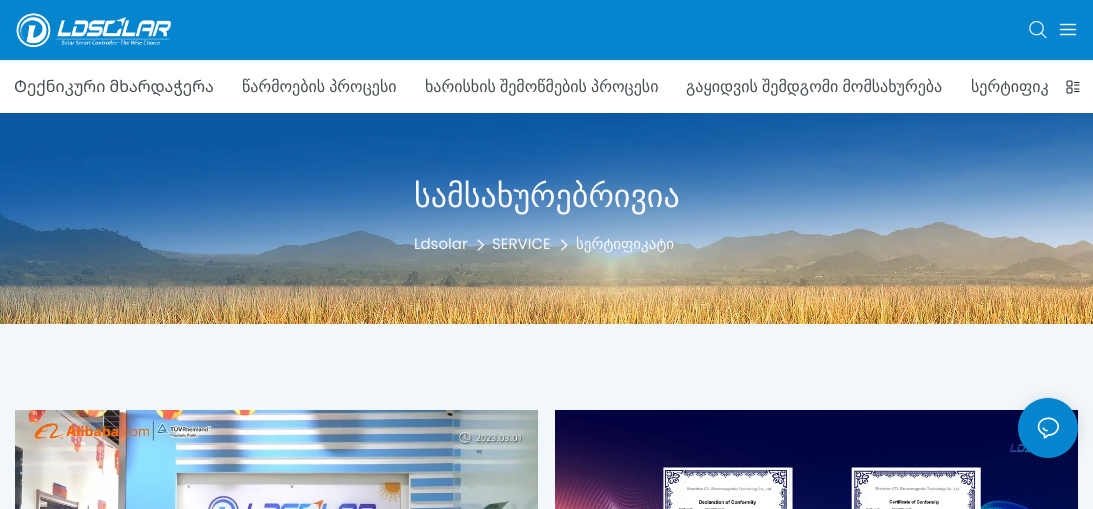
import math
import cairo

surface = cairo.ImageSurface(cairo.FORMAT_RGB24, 1093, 509)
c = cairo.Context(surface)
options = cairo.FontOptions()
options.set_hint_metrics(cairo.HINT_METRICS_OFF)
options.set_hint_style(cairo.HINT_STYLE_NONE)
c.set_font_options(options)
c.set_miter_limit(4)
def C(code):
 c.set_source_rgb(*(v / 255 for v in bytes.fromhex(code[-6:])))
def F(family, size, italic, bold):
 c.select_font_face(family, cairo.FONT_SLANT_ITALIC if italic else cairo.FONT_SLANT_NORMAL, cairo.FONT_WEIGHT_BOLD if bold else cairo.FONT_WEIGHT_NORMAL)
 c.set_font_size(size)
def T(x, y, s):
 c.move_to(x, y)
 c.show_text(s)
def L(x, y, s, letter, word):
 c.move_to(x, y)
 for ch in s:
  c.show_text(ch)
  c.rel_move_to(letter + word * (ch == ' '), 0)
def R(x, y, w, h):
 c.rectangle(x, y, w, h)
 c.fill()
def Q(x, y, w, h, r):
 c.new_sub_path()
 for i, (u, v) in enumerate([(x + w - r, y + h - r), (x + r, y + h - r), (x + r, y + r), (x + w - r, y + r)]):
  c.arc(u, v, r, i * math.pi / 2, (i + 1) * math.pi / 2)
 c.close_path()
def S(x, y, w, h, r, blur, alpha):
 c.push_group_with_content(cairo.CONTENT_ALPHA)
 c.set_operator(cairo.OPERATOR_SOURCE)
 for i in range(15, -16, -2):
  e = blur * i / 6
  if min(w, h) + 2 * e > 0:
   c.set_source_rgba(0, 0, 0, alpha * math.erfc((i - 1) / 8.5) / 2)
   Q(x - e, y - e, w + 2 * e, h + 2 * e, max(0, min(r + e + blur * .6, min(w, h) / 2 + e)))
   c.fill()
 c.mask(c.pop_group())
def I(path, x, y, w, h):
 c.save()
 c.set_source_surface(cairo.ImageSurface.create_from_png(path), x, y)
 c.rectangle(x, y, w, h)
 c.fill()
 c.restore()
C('f1f7fb')
c.paint()
C('0685cf')
R(0,0,1093,60)
I('1.png',16,13,155,35)
I('2.png',1029,21,18,18)
I('3.png',1059,23,18,13)
C('ffffff')
R(0,61,1093,52)
C('eeefef')
R(0,60,1093,1)
F('Noto Sans Georgian',16,0,0)
C('454d51')
T(14,92,'Ტექნიკური მხარდაჭერა')
F('DejaVu Sans',16,0,0)
L(242,92,'წარმოების პროცესი',0,-1)
L(425,92,'ხარისხის შემოწმების პროცესი',0,-1)
L(686,92,'გაყიდვის შემდგომი მომსახურება',0,-1)
T(971,92,'სერტიფიკ')
I('4.png',1066,80,14,14)
I('5.png',0,113,1093,211)
F('DejaVu Sans',32,0,0)
C('f8f8f8')
T(414,207,'სამსახურებრივია')
F('Poppins',15,0,0)
T(414,249,'Ldsolar')
I('6.png',477,239,7,12)
T(492,249,'SERVICE')
I('7.png',561,239,7,12)
F('DejaVu Sans',15,0,0)
T(576,249,'სერტიფიკატი')
I('8.png',15,410,523,99)
I('9.png',555,410,523,99)
C('000000')
S(1018,400,60,60,30,8,.12)
S(1018,399,60,60,30,2,.06)
C('0685cf')
c.arc(1048,428,30,0,2 * math.pi)
c.fill()
I('10.png',1037,417,22,22)
surface.write_to_png('o.png')
